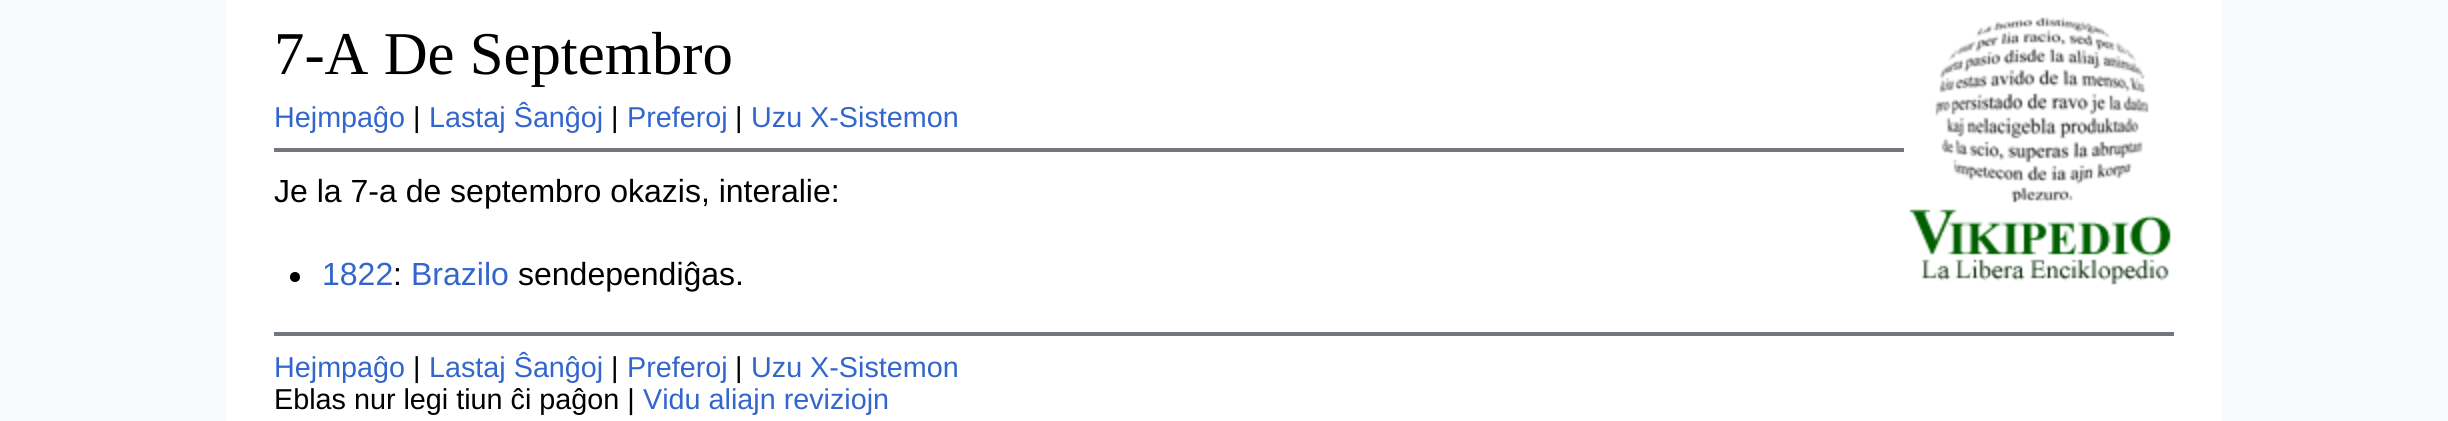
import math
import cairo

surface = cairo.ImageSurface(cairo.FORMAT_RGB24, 2448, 421)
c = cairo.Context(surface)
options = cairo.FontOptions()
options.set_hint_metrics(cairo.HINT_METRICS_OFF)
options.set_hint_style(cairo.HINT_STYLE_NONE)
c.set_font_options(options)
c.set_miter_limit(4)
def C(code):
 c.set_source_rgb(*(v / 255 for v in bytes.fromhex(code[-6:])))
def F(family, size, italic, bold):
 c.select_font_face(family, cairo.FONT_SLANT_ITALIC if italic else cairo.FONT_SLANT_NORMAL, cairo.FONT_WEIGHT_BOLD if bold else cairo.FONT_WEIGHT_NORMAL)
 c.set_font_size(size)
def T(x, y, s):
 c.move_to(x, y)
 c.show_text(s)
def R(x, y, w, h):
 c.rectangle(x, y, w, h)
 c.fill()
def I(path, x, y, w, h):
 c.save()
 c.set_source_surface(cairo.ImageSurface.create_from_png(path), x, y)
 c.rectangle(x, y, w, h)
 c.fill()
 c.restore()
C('f8f9fa')
c.paint()
C('ffffff')
R(226,0,1996,421)
F('Liberation Serif',60.75,0,0)
C('000000')
T(274,74,'7-A De Septembro')
I('1.png',1909,17,262,268)
F('Liberation Sans',28.75,0,0)
C('3366cc')
T(274,127,'Hejmpaĝo')
C('000000')
T(413,127,'|')
C('3366cc')
T(429,127,'Lastaj Ŝanĝoj')
C('000000')
T(611,127,'|')
C('3366cc')
T(627,127,'Preferoj')
C('000000')
T(735,127,'|')
C('3366cc')
T(751,127,'Uzu X-Sistemon')
C('72777d')
R(274,148,1630,4)
F('Liberation Sans',32,0,0)
C('000000')
T(274,202,'Je la 7-a de septembro okazis, interalie:')
c.new_path()
c.arc(295,277,5,0,2 * math.pi)
c.fill()
C('3366cc')
T(322,285,'1822')
C('000000')
T(393,285,':')
C('3366cc')
T(411,285,'Brazilo')
C('000000')
T(518,285,'sendependiĝas.')
C('72777d')
R(274,332,1900,4)
F('Liberation Sans',28.75,0,0)
C('3366cc')
T(274,377,'Hejmpaĝo')
C('000000')
T(413,377,'|')
C('3366cc')
T(429,377,'Lastaj Ŝanĝoj')
C('000000')
T(611,377,'|')
C('3366cc')
T(627,377,'Preferoj')
C('000000')
T(735,377,'|')
C('3366cc')
T(751,377,'Uzu X-Sistemon')
C('000000')
T(274,409,'Eblas nur legi tiun ĉi paĝon |')
C('3366cc')
T(643,409,'Vidu aliajn reviziojn')
surface.write_to_png('o.png')
